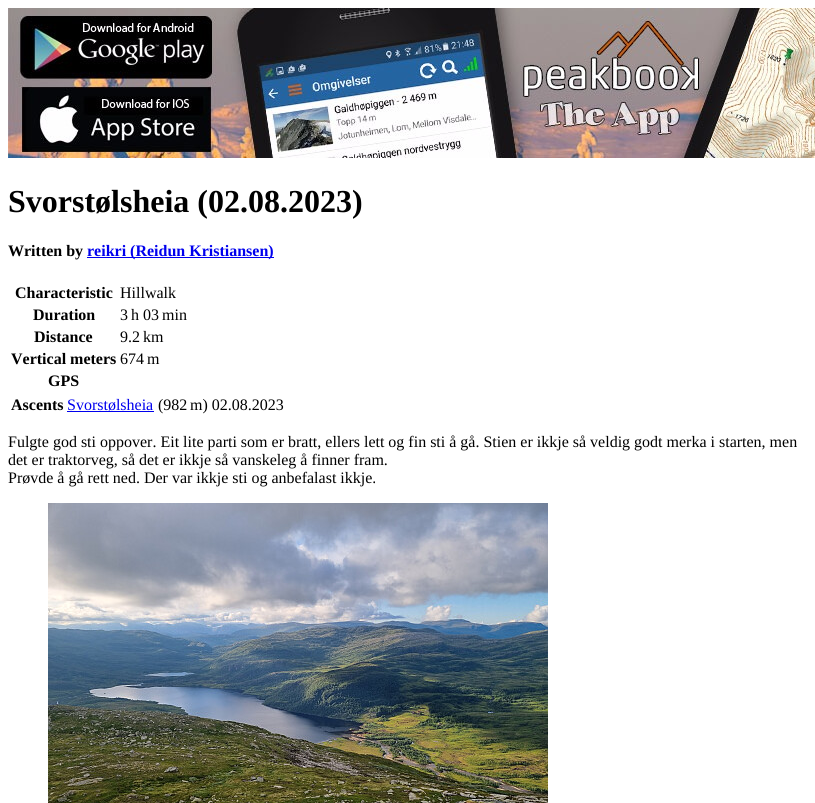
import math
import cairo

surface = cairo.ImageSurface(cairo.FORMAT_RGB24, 815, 803)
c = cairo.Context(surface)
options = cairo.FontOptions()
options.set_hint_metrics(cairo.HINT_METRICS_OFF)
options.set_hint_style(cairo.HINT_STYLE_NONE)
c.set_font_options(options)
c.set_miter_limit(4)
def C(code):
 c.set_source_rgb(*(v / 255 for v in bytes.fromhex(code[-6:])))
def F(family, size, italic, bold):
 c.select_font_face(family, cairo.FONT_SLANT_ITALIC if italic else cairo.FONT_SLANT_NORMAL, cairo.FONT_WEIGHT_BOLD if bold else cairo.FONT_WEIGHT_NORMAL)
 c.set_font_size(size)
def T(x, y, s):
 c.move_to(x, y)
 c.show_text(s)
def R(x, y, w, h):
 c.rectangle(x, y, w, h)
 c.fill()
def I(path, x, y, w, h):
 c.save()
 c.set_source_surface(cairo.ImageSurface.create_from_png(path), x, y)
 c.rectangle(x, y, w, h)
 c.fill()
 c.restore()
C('ffffff')
c.paint()
I('1.png',8,8,807,150)
F('Liberation Serif',32,0,1)
C('000000')
T(8,212,'Svorstølsheia (02.08.2023)')
F('Liberation Serif',16,0,1)
T(8,256,'Written by')
C('0000ee')
R(87,257,187,1)
T(87,256,'reikri (Reidun Kristiansen)')
C('000000')
T(15,298,'Characteristic')
F('Liberation Serif',16,0,0)
T(120,298,'Hillwalk')
F('Liberation Serif',16,0,1)
T(33,320,'Duration')
F('Liberation Serif',16,0,0)
T(120,320,'3')
T(131,320,'h 03')
T(162,320,'min')
F('Liberation Serif',16,0,1)
T(34,342,'Distance')
F('Liberation Serif',16,0,0)
T(120,342,'9.2')
T(143,342,'km')
F('Liberation Serif',16,0,1)
T(11,364,'Vertical meters')
F('Liberation Serif',16,0,0)
T(120,364,'674')
T(147,364,'m')
F('Liberation Serif',16,0,1)
T(48,386,'GPS')
T(11,410,'Ascents')
F('Liberation Serif',16,0,0)
C('0000ee')
T(67,410,'Svorstølsheia')
R(67,411,87,1)
C('000000')
T(158,410,'(982')
T(190,410,'m) 02.08.2023')
T(8,447,'Fulgte god sti oppover. Eit lite parti som er bratt, ellers lett og fin sti å gå. Stien er ikkje så veldig godt merka i starten, men')
T(8,465,'det er traktorveg, så det er ikkje så vanskeleg å finner fram.')
T(8,483,'Prøvde å gå rett ned. Der var ikkje sti og anbefalast ikkje.')
I('2.png',48,503,500,300)
surface.write_to_png('o.png')
